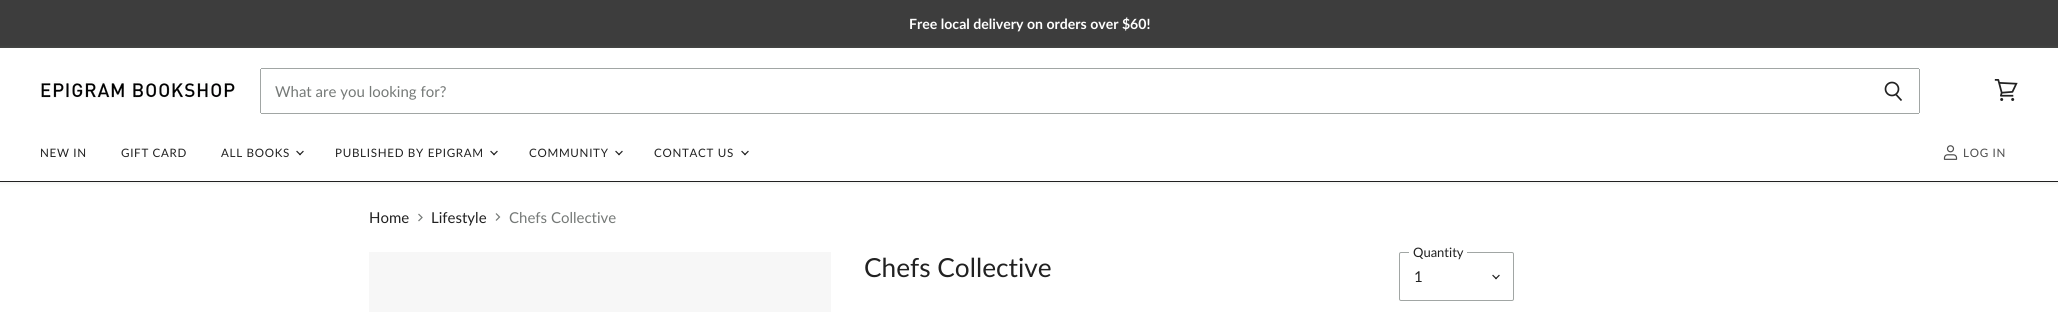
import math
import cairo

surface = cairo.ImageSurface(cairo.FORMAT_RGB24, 2058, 312)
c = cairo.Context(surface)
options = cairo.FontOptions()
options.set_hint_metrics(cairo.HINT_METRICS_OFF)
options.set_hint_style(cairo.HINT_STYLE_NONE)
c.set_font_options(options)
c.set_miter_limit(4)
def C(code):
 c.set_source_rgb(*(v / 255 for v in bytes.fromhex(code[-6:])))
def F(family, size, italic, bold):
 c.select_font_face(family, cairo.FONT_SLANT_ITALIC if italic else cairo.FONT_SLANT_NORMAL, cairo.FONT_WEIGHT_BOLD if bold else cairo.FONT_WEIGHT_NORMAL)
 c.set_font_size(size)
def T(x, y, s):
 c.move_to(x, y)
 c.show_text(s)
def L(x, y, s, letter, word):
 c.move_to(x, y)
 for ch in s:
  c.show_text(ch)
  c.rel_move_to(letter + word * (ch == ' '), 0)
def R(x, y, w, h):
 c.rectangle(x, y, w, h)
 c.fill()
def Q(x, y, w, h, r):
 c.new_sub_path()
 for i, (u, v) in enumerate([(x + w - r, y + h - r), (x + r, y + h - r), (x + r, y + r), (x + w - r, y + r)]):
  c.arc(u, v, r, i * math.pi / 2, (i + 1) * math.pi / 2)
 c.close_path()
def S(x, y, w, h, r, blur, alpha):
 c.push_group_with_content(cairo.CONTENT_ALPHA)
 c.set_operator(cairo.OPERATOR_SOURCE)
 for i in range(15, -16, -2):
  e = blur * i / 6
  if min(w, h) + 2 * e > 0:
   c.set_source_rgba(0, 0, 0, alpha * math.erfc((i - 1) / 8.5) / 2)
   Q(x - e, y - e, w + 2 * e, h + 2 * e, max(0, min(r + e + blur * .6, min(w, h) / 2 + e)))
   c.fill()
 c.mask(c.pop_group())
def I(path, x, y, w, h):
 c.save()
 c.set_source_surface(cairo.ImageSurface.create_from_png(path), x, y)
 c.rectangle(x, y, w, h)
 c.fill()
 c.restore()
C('ffffff')
c.paint()
C('3d3d3d')
R(0,0,2058,48)
F('Lato',14.1,0,1)
C('ffffff')
T(909,29,'Free local delivery on orders over $60!')
c.save()
c.set_fill_rule(cairo.FILL_RULE_EVEN_ODD)
c.new_path()
c.move_to(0,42)
c.line_to(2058,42)
c.line_to(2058,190)
c.line_to(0,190)
c.close_path()
c.move_to(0,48)
c.line_to(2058,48)
c.line_to(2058,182)
c.line_to(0,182)
c.close_path()
c.clip()
C('bac0be')
S(0,49,2058,134,0,2,.25)
c.restore()
C('212121')
R(0,181,2058,1)
I('1.png',40,81,195,19)
C('a1a6a4')
R(261,68,1658,1)
R(1919,69,1,44)
R(261,113,1658,1)
c.new_path()
c.move_to(1901.5,100.5)
c.line_to(1896,94.5)
C('212121')
c.set_line_width(1.7)
c.stroke()
c.arc(1892,89,6.5,0,2 * math.pi)
c.stroke()
C('a1a6a4')
R(260,69,1,44)
F('Lato',15,0,0)
C('757977')
T(275,97,'What are you looking for?')
I('2.png',1994,79,24,22)
F('Lato',11.6,0,0)
C('212121')
L(40,157,'NEW IN',.7,0)
L(121,157,'GIFT CARD',.7,0)
L(221,157,'ALL BOOKS',.7,0)
I('3.png',296,150,8,6)
L(335,157,'PUBLISHED BY EPIGRAM',.7,0)
I('3.png',490,150,8,6)
L(529,157,'COMMUNITY',.7,0)
I('3.png',615,150,8,6)
L(654,157,'CONTACT US',.7,0)
I('3.png',741,150,8,6)
I('4.png',1943,145,15,15)
C('4d4d4d')
L(1963,157,'LOG IN',.7,0)
F('Lato',15,0,0)
C('212121')
T(369,223,'Home')
c.new_path()
c.move_to(418.5,221)
c.line_to(422,217.5)
c.line_to(418.5,214)
C('757977')
c.set_line_width(1.2)
c.stroke()
C('212121')
T(431,223,'Lifestyle')
c.new_path()
c.move_to(496,220.5)
c.line_to(499.5,217)
c.line_to(496,213.5)
C('757977')
c.stroke()
T(509,223,'Chefs Collective')
C('f7f7f7')
R(369,252,462,60)
F('Lato',26.25,0,0)
C('212121')
T(864,277,'Chefs Collective')
Q(1399.5,252.5,114,48,1.5)
C('a1a6a4')
c.set_line_width(1)
c.stroke()
C('ffffff')
R(1409,252,58,1)
F('Lato',13,0,0)
C('212121')
T(1413,257,'Quantity')
F('Lato',15,0,0)
T(1414,282,'1')
I('3.png',1492,274,8,6)
surface.write_to_png('o.png')
